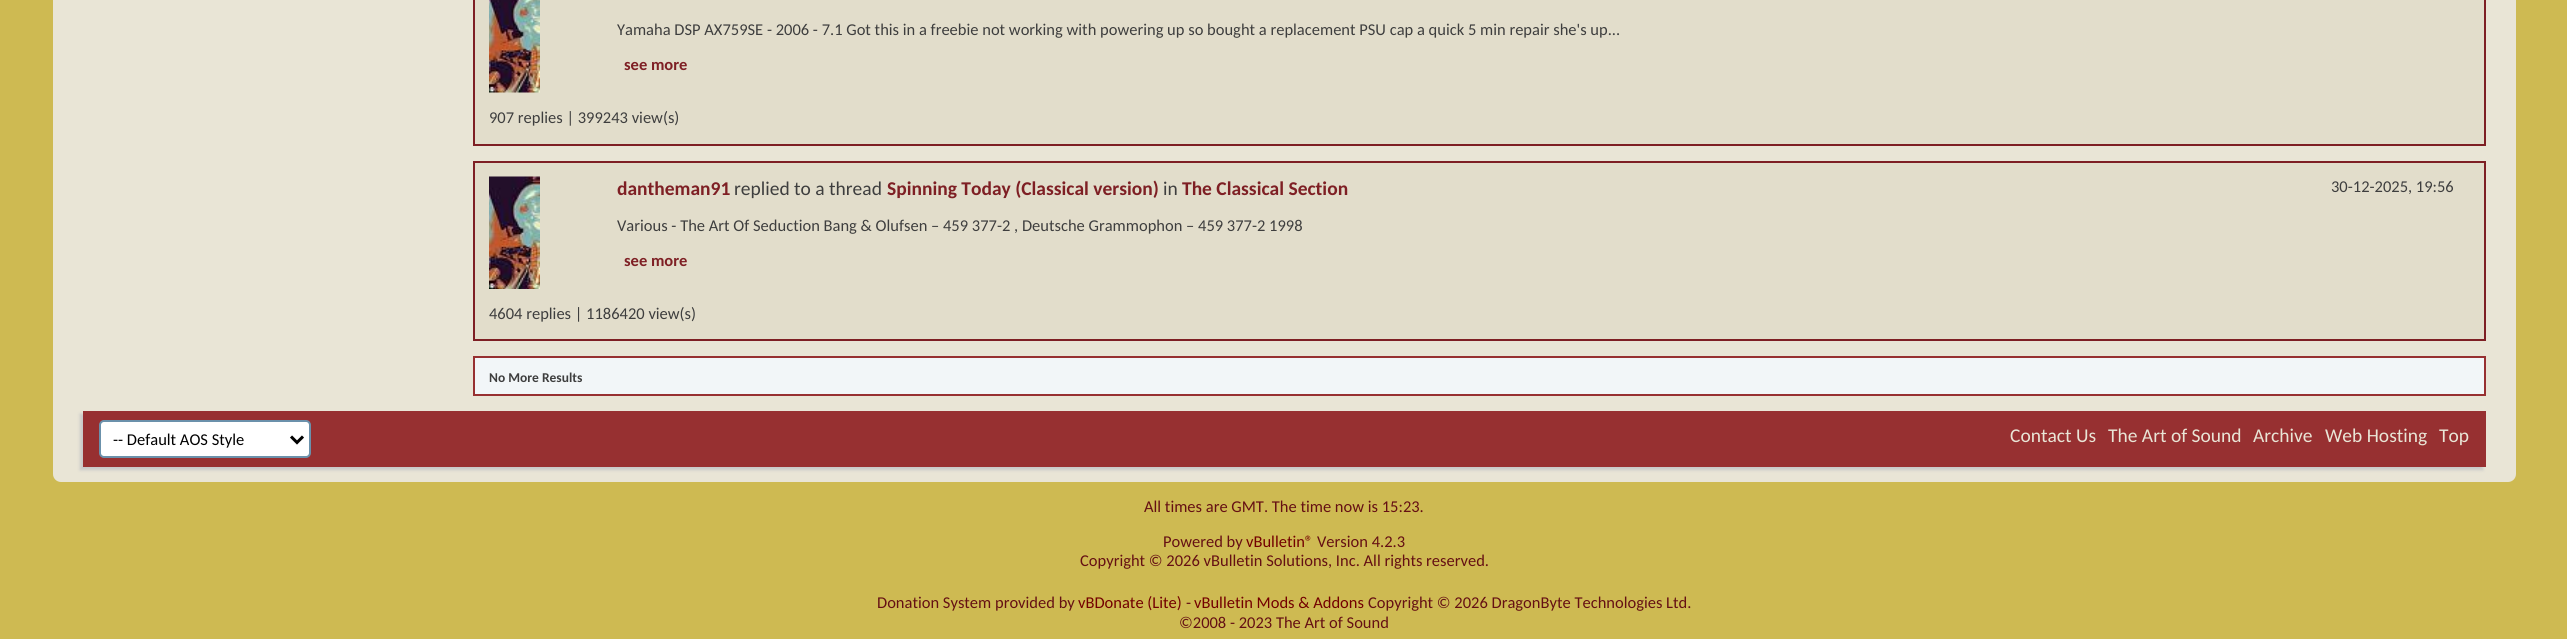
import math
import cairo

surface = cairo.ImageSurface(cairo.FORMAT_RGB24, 2567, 639)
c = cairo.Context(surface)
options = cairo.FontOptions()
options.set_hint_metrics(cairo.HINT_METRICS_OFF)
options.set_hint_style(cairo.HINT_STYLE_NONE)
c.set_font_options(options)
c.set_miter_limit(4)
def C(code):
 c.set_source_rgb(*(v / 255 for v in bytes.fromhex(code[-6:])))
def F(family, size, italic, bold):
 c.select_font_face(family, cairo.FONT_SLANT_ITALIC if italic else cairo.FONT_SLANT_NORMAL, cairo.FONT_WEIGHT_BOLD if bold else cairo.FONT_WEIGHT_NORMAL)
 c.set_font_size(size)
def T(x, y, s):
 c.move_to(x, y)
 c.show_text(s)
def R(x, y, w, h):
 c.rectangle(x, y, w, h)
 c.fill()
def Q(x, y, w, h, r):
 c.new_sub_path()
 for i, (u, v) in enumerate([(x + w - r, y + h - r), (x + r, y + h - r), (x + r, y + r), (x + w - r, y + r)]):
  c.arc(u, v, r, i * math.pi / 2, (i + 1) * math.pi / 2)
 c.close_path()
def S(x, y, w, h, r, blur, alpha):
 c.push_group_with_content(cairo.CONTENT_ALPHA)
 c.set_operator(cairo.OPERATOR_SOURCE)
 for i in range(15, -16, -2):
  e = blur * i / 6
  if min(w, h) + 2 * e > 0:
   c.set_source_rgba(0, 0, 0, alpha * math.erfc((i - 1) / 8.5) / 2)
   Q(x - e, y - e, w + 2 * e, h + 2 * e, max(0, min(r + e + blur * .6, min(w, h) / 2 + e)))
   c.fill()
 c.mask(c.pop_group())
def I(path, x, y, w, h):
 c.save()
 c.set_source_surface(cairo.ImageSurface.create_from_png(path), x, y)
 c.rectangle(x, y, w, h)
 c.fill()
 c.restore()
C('ceba52')
c.paint()
C('e9e5d6')
Q(53,-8,2463,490,8)
c.fill()
C('e2ddcb')
c.rectangle(474,-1,2011,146)
c.fill_preserve()
C('7e1f24')
c.stroke()
I('1.png',489,0,51,93)
F('Carlito',16.5,0,0)
C('3e3e3e')
T(617,35,'Yamaha DSP AX759SE - 2006 - 7.1 Got this in a freebie not working with powering up so bought a replacement PSU cap a quick 5 min repair she\'s up...')
F('Carlito',16.5,0,1)
C('7e1f24')
T(624,70,'see more')
F('Carlito',16.5,0,0)
C('3e3e3e')
T(489,123,'907 replies | 399243 view(s)')
C('e2ddcb')
c.rectangle(474,162,2011,178)
c.fill_preserve()
C('7e1f24')
c.stroke()
I('2.png',489,176,51,113)
F('Carlito',19.5,0,1)
T(617,195,'dantheman91')
F('Carlito',19.5,0,0)
C('3e3e3e')
T(734,195,'replied to a thread')
F('Carlito',19.5,0,1)
C('7e1f24')
T(887,195,'Spinning Today (Classical version)')
F('Carlito',19.5,0,0)
C('3e3e3e')
T(1163,195,'in')
F('Carlito',19.5,0,1)
C('7e1f24')
T(1182,195,'The Classical Section')
F('Carlito',16.5,0,0)
C('3e3e3e')
T(2331,192,'30-12-2025, 19:56')
T(617,231,'Various - The Art Of Seduction Bang & Olufsen – 459 377-2 , Deutsche Grammophon – 459 377-2 1998')
F('Carlito',16.5,0,1)
C('7e1f24')
T(624,266,'see more')
F('Carlito',16.5,0,0)
C('3e3e3e')
T(489,319,'4604 replies | 1186420 view(s)')
C('f2f6f8')
c.rectangle(474,357,2011,38)
c.fill_preserve()
C('973031')
c.stroke()
F('Carlito',13.5,0,1)
C('3e3e3e')
T(489,382,'No More Results')
C('c8c8c8')
S(80,414,2403,56,0,1.5,1)
C('973031')
R(83,411,2403,56)
C('ffffff')
Q(100,421,210,36,4)
c.fill_preserve()
C('6b91ab')
c.stroke()
c.new_path()
c.move_to(291,436.5)
c.line_to(297,442.5)
c.line_to(303,436.5)
C('000000')
c.set_line_width(3)
c.stroke()
F('Carlito',16.5,0,0)
T(113,445,'-- Default AOS Style')
F('Carlito',19.5,0,0)
C('e9e5d6')
T(2010,442,'Contact Us')
T(2108,442,'The Art of Sound')
T(2253,442,'Archive')
T(2325,442,'Web Hosting')
T(2439,442,'Top')
F('Carlito',16.5,0,0)
C('651013')
T(1144,512,'All times are GMT. The time now is 15:23.')
T(1163,547,'Powered by')
C('730000')
T(1246,547,'vBulletin®')
C('651013')
T(1317,547,'Version 4.2.3')
T(1080,566,'Copyright © 2026 vBulletin Solutions, Inc. All rights reserved.')
T(877,608,'Donation System provided by')
C('730000')
T(1078,608,'vBDonate (Lite)')
C('651013')
T(1186,608,'-')
C('730000')
T(1194,608,'vBulletin Mods & Addons')
C('651013')
T(1368,608,'Copyright © 2026 DragonByte Technologies Ltd.')
T(1179,628,'©2008 - 2023 The Art of Sound')
surface.write_to_png('o.png')
